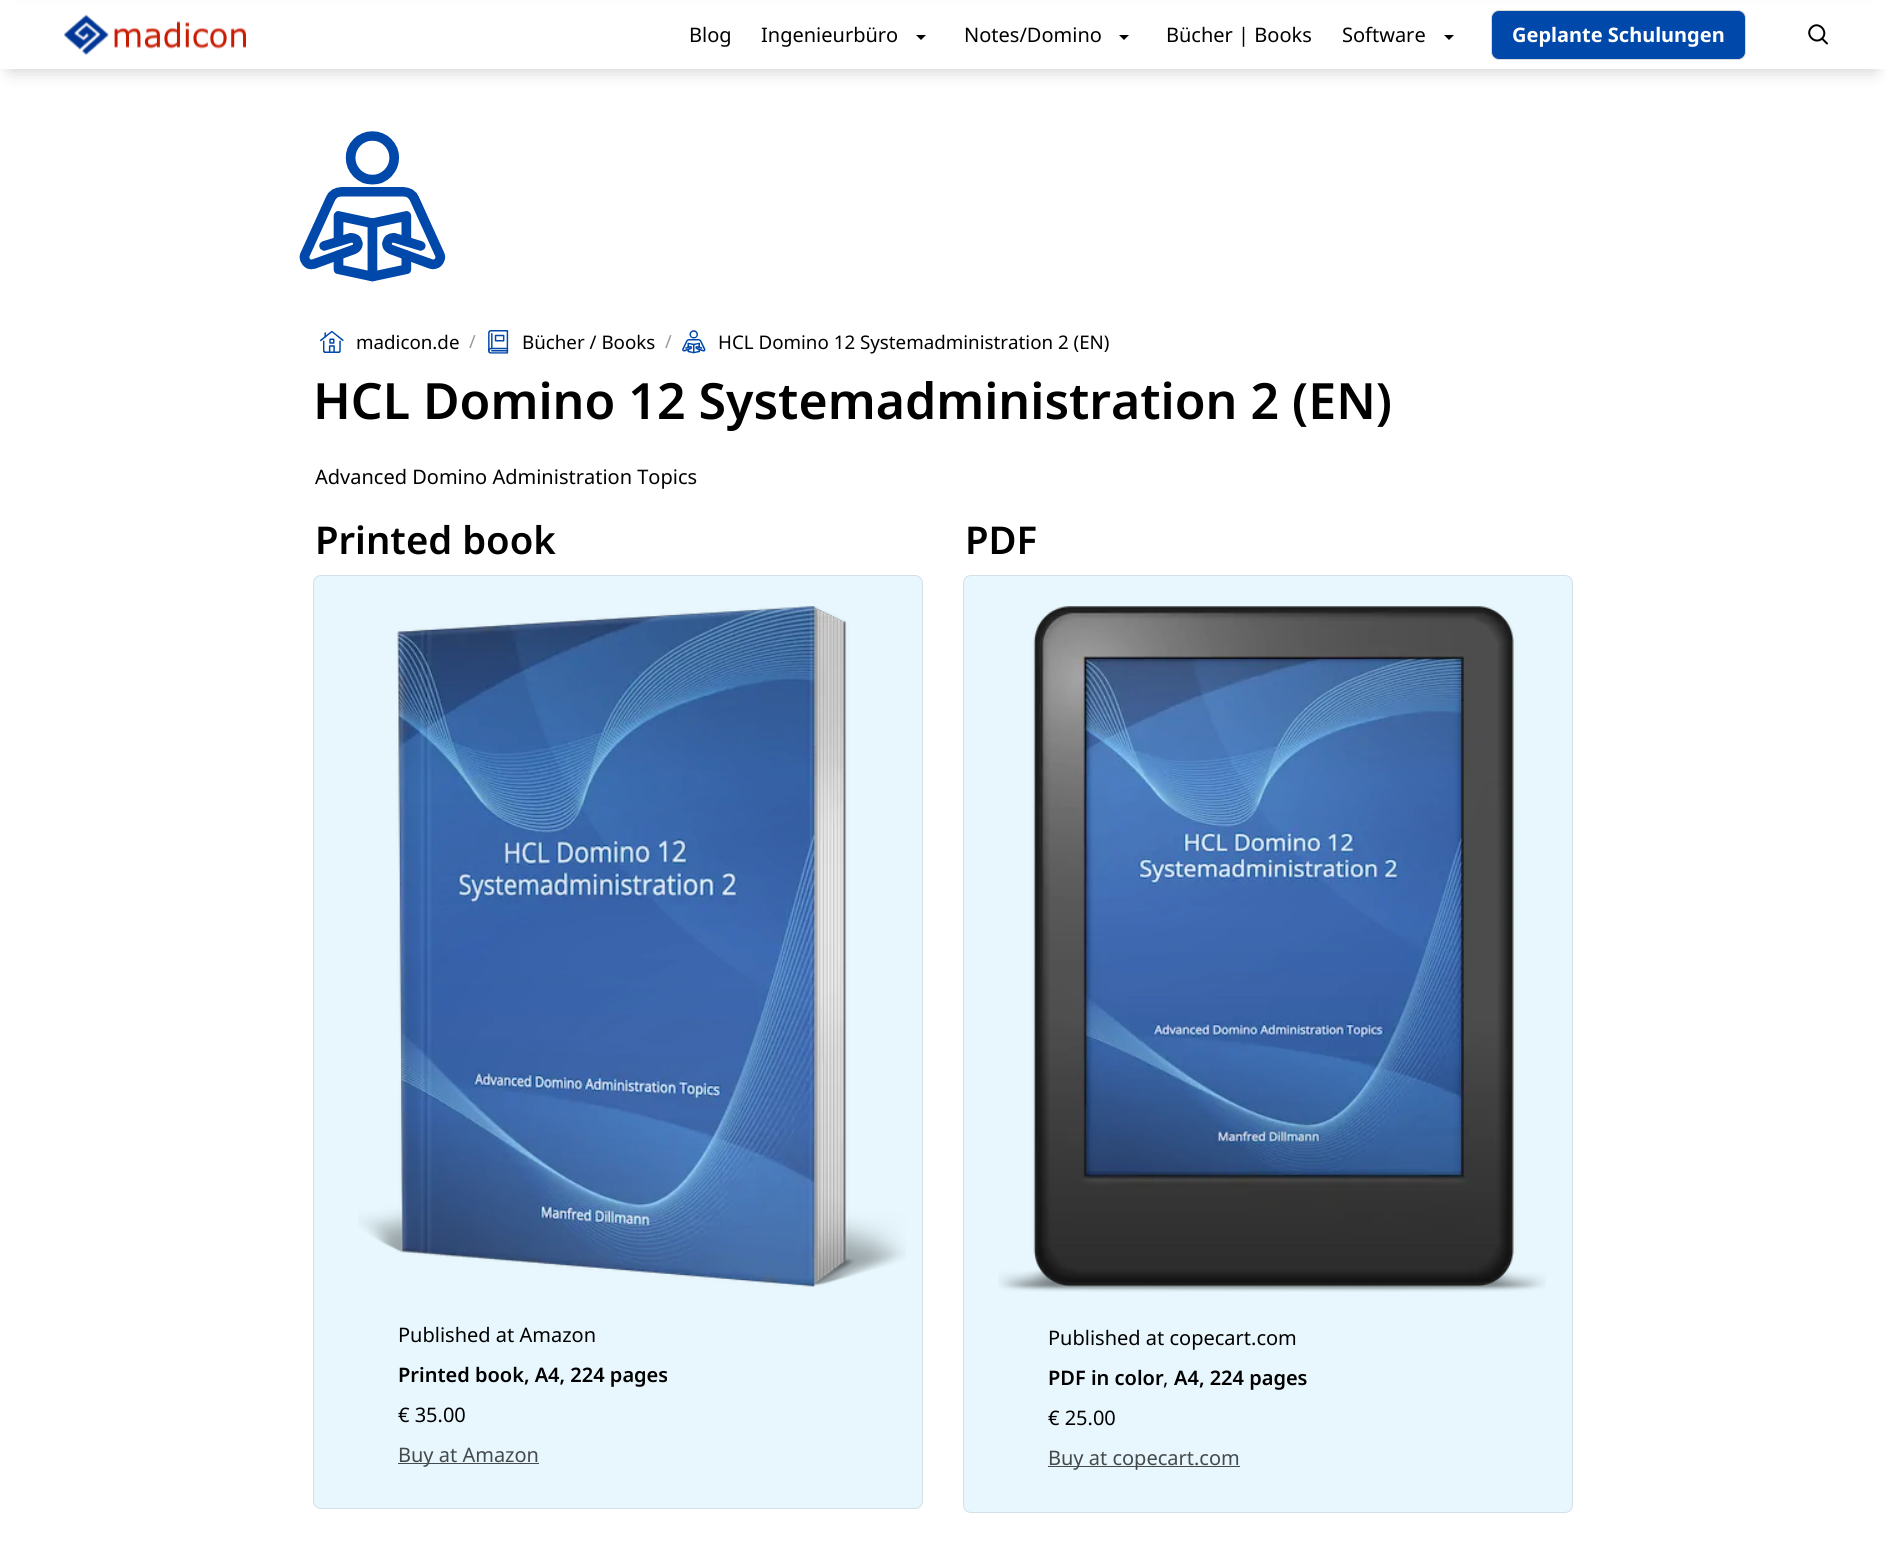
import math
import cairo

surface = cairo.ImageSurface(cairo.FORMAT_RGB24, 1885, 1557)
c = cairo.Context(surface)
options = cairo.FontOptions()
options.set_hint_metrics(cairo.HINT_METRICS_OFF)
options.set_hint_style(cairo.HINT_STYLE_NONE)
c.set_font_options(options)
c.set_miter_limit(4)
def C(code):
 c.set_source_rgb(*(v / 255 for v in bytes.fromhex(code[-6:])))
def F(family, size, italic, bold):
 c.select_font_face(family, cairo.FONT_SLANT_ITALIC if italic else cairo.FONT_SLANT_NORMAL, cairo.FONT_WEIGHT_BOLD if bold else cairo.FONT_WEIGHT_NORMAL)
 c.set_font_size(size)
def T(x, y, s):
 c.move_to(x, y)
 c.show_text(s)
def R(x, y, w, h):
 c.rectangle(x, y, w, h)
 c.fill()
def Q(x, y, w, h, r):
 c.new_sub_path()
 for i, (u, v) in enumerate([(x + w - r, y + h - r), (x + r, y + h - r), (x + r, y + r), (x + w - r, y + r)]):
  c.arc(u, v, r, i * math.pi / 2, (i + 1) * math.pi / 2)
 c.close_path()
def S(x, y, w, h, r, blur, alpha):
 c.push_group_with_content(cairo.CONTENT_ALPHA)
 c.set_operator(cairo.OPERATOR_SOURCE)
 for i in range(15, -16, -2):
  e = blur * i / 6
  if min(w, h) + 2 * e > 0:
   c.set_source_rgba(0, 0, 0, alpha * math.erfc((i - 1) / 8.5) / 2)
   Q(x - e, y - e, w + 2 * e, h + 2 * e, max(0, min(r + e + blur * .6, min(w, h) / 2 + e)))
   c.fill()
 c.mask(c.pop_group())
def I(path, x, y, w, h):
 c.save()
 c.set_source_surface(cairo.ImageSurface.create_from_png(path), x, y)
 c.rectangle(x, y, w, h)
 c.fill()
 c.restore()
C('ffffff')
c.paint()
C('000000')
S(11,21,1863,47,0,9.5,.25)
C('ffffff')
R(0,4,1885,65)
I('1.png',63,14,183,41)
F('Noto Sans',20,0,0)
C('000000')
T(689,42,'Blog')
T(761,42,'Ingenieurbüro')
c.new_path()
c.move_to(916,35)
c.line_to(926,35)
c.line_to(921,40)
c.close_path()
c.fill()
T(964,42,'Notes/Domino')
c.new_path()
c.move_to(1119,35)
c.line_to(1129,35)
c.line_to(1124,40)
c.close_path()
c.fill()
T(1166,42,'Bücher | Books')
T(1342,42,'Software')
c.new_path()
c.move_to(1444,35)
c.line_to(1454,35)
c.line_to(1449,40)
c.close_path()
c.fill()
C('0048aa')
Q(1491.5,10.5,254,49,7.5)
c.fill_preserve()
C('dbdbdb')
c.set_line_width(1)
c.stroke()
F('Noto Sans',20,0,1)
C('ffffff')
T(1512,42,'Geplante Schulungen')
c.new_path()
c.move_to(1827,43.5)
c.line_to(1822,38.5)
c.move_to(1822,38.5)
c.curve_to(1829,31.5,1818.5,20.5,1811.5,27.5)
c.curve_to(1804.5,34.5,1815,45,1822,38.5)
c.close_path()
C('000000')
c.set_line_width(2)
c.set_line_cap(cairo.LINE_CAP_ROUND)
c.set_line_join(cairo.LINE_JOIN_ROUND)
c.stroke()
I('2.png',299,131,147,151)
I('3.png',320,330,24,23)
F('Noto Sans',18.75,0,0)
T(356,349,'madicon.de')
F('Noto Sans',18,0,0)
C('999999')
T(469,348,'/')
I('4.png',488,330,21,24)
F('Noto Sans',18.75,0,0)
C('000000')
T(522,349,'Bücher / Books')
F('Noto Sans',18,0,0)
C('999999')
T(665,348,'/')
I('5.png',682,330,24,24)
F('Noto Sans',18.75,0,0)
C('000000')
T(718,349,'HCL Domino 12 Systemadministration 2 (EN)')
F('Noto Sans SemiBold',50,0,0)
T(313,419,'HCL Domino 12 Systemadministration 2 (EN)')
F('Noto Sans',20,0,0)
T(315,484,'Advanced Domino Administration Topics')
F('Noto Sans SemiBold',38.25,0,0)
T(315,554,'Printed book')
C('e7f7fd')
Q(313,575,610,934,8)
c.fill()
Q(313.5,575.5,609,933,7.5)
c.set_source_rgba(0,0,0,0.09)
c.set_line_width(1)
c.set_line_cap(cairo.LINE_CAP_BUTT)
c.set_line_join(cairo.LINE_JOIN_MITER)
c.stroke()
I('6.png',358,606,548,681)
F('Noto Sans',20,0,0)
C('000000')
T(398,1342,'Published at Amazon')
F('Noto Sans SemiBold',20,0,0)
T(398,1382,'Printed book, A4, 224 pages')
F('Noto Sans',20,0,0)
T(398,1422,'€ 35.00')
C('454a4c')
R(398,1463,141,1)
T(398,1462,'Buy at Amazon')
F('Noto Sans SemiBold',38.25,0,0)
C('000000')
T(965,554,'PDF')
C('e7f7fd')
Q(963,575,610,938,8)
c.fill()
Q(963.5,575.5,609,937,7.5)
c.set_source_rgba(0,0,0,0.09)
c.stroke()
I('7.png',998,606,548,686)
F('Noto Sans',20,0,0)
C('000000')
T(1048,1345,'Published at copecart.com')
F('Noto Sans SemiBold',20,0,0)
T(1048,1385,'PDF in color')
F('Noto Sans',20,0,0)
T(1163,1385,',')
F('Noto Sans SemiBold',20,0,0)
T(1174,1385,'A4, 224 pages')
F('Noto Sans',20,0,0)
T(1048,1425,'€ 25.00')
C('454a4c')
R(1048,1466,192,1)
T(1048,1465,'Buy at copecart.com')
surface.write_to_png('o.png')
